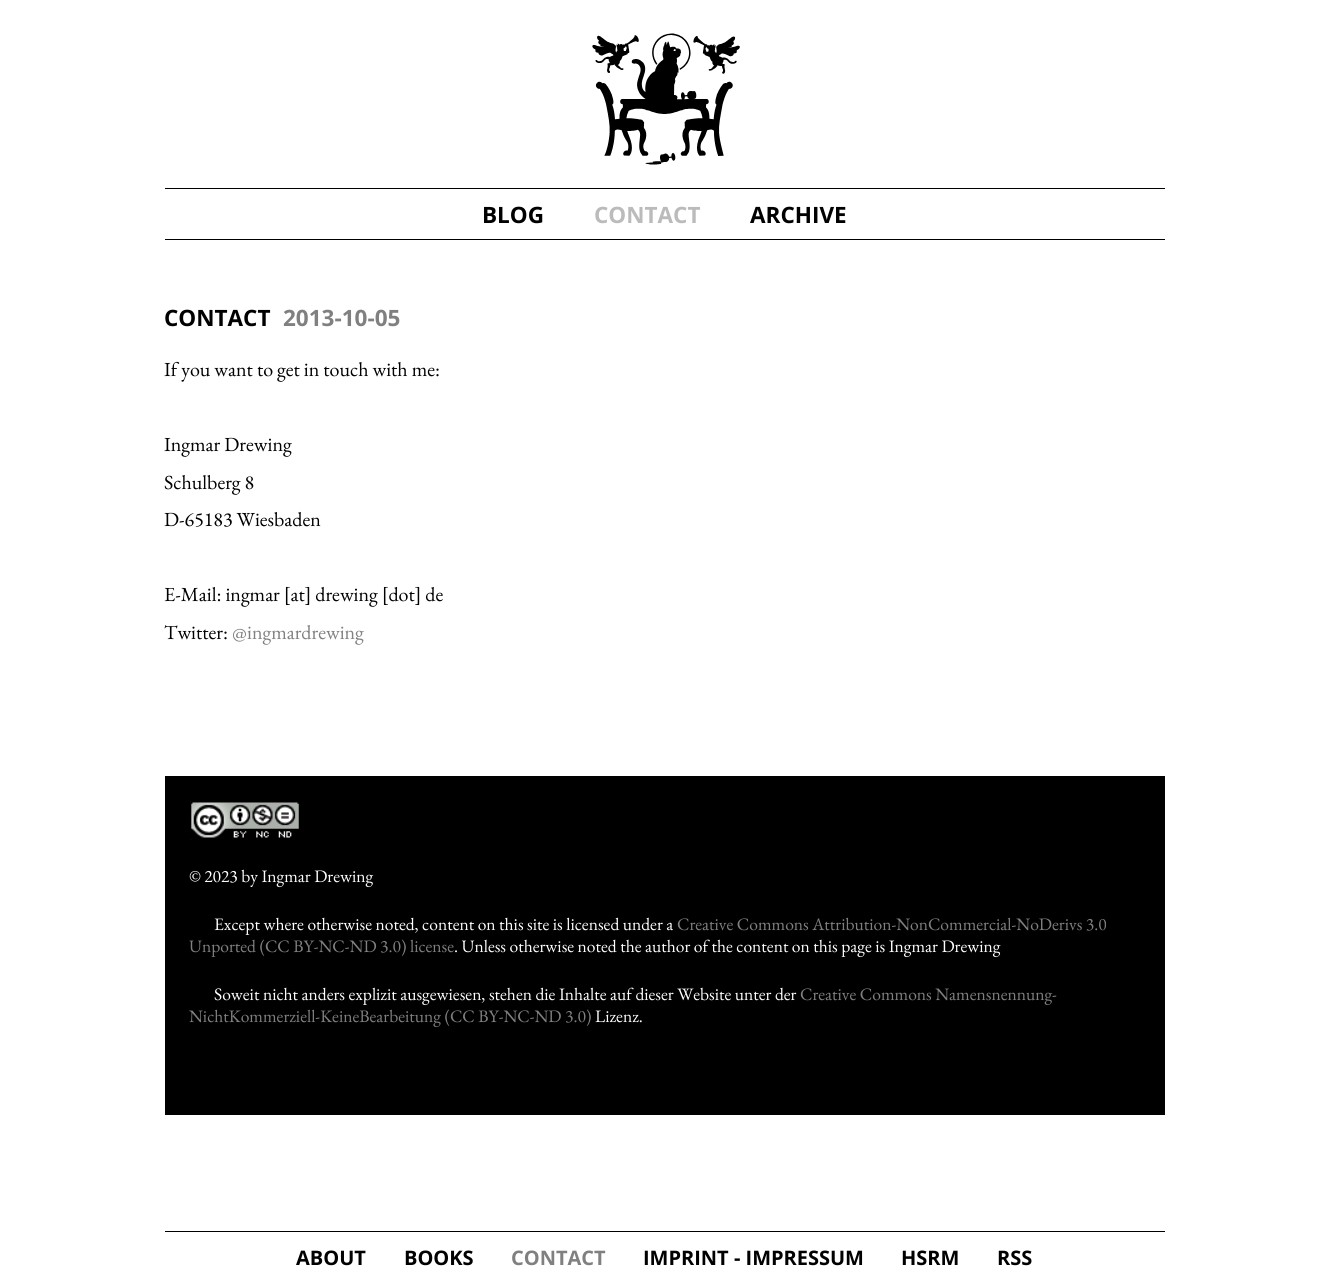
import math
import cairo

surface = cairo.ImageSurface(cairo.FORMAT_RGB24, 1328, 1282)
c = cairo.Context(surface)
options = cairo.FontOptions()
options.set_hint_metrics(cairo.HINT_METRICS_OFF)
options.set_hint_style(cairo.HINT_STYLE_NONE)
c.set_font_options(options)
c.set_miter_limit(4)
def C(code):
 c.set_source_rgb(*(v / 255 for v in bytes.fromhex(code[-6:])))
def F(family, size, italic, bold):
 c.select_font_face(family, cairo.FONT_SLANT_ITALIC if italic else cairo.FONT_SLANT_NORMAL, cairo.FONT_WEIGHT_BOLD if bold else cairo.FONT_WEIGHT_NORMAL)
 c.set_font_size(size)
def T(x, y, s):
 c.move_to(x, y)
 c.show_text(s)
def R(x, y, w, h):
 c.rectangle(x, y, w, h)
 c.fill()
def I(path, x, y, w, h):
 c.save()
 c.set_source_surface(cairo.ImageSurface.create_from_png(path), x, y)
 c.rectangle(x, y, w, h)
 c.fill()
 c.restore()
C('ffffff')
c.paint()
I('1.png',592,33,148,132)
C('000000')
R(165,188,1000,1)
R(165,239,1000,1)
F('Open Sans',22.5,0,1)
T(482,223,'BLOG')
C('bbbbbb')
T(594,223,'CONTACT')
C('000000')
T(750,223,'ARCHIVE')
T(164,326,'CONTACT')
C('808080')
T(283,326,'2013-10-05')
F('EB Garamond',20,0,0)
C('000000')
T(164,376,'If you want to get in touch with me:')
T(164,451,'Ingmar Drewing')
T(164,489,'Schulberg 8')
T(164,526,'D-65183 Wiesbaden')
T(164,601,'E-Mail: ingmar [at] drewing [dot] de')
T(164,639,'Twitter:')
C('808080')
T(232,639,'@ingmardrewing')
C('000000')
R(165,776,1000,339)
I('2.png',190,801,109,39)
F('EB Garamond',17.5,0,0)
C('ffffff')
T(189,882,'© 2023 by Ingmar Drewing')
T(214,930,'Except where otherwise noted, content on this site is licensed under a')
C('808080')
T(677,930,'Creative Commons Attribution-NonCommercial-NoDerivs 3.0')
T(189,952,'Unported (CC BY-NC-ND 3.0) license')
C('ffffff')
T(454,952,'. Unless otherwise noted the author of the content on this page is Ingmar Drewing')
T(214,1000,'Soweit nicht anders explizit ausgewiesen, stehen die Inhalte auf dieser Website unter der')
C('808080')
T(800,1000,'Creative Commons Namensnennung-')
T(189,1022,'NichtKommerziell-KeineBearbeitung (CC BY-NC-ND 3.0)')
C('ffffff')
T(595,1022,'Lizenz.')
C('000000')
R(165,1231,1000,1)
F('Open Sans',20,0,1)
T(296,1265,'ABOUT')
T(404,1265,'BOOKS')
C('808080')
T(511,1265,'CONTACT')
C('000000')
T(643,1265,'IMPRINT - IMPRESSUM')
T(901,1265,'HSRM')
T(997,1265,'RSS')
surface.write_to_png('o.png')
